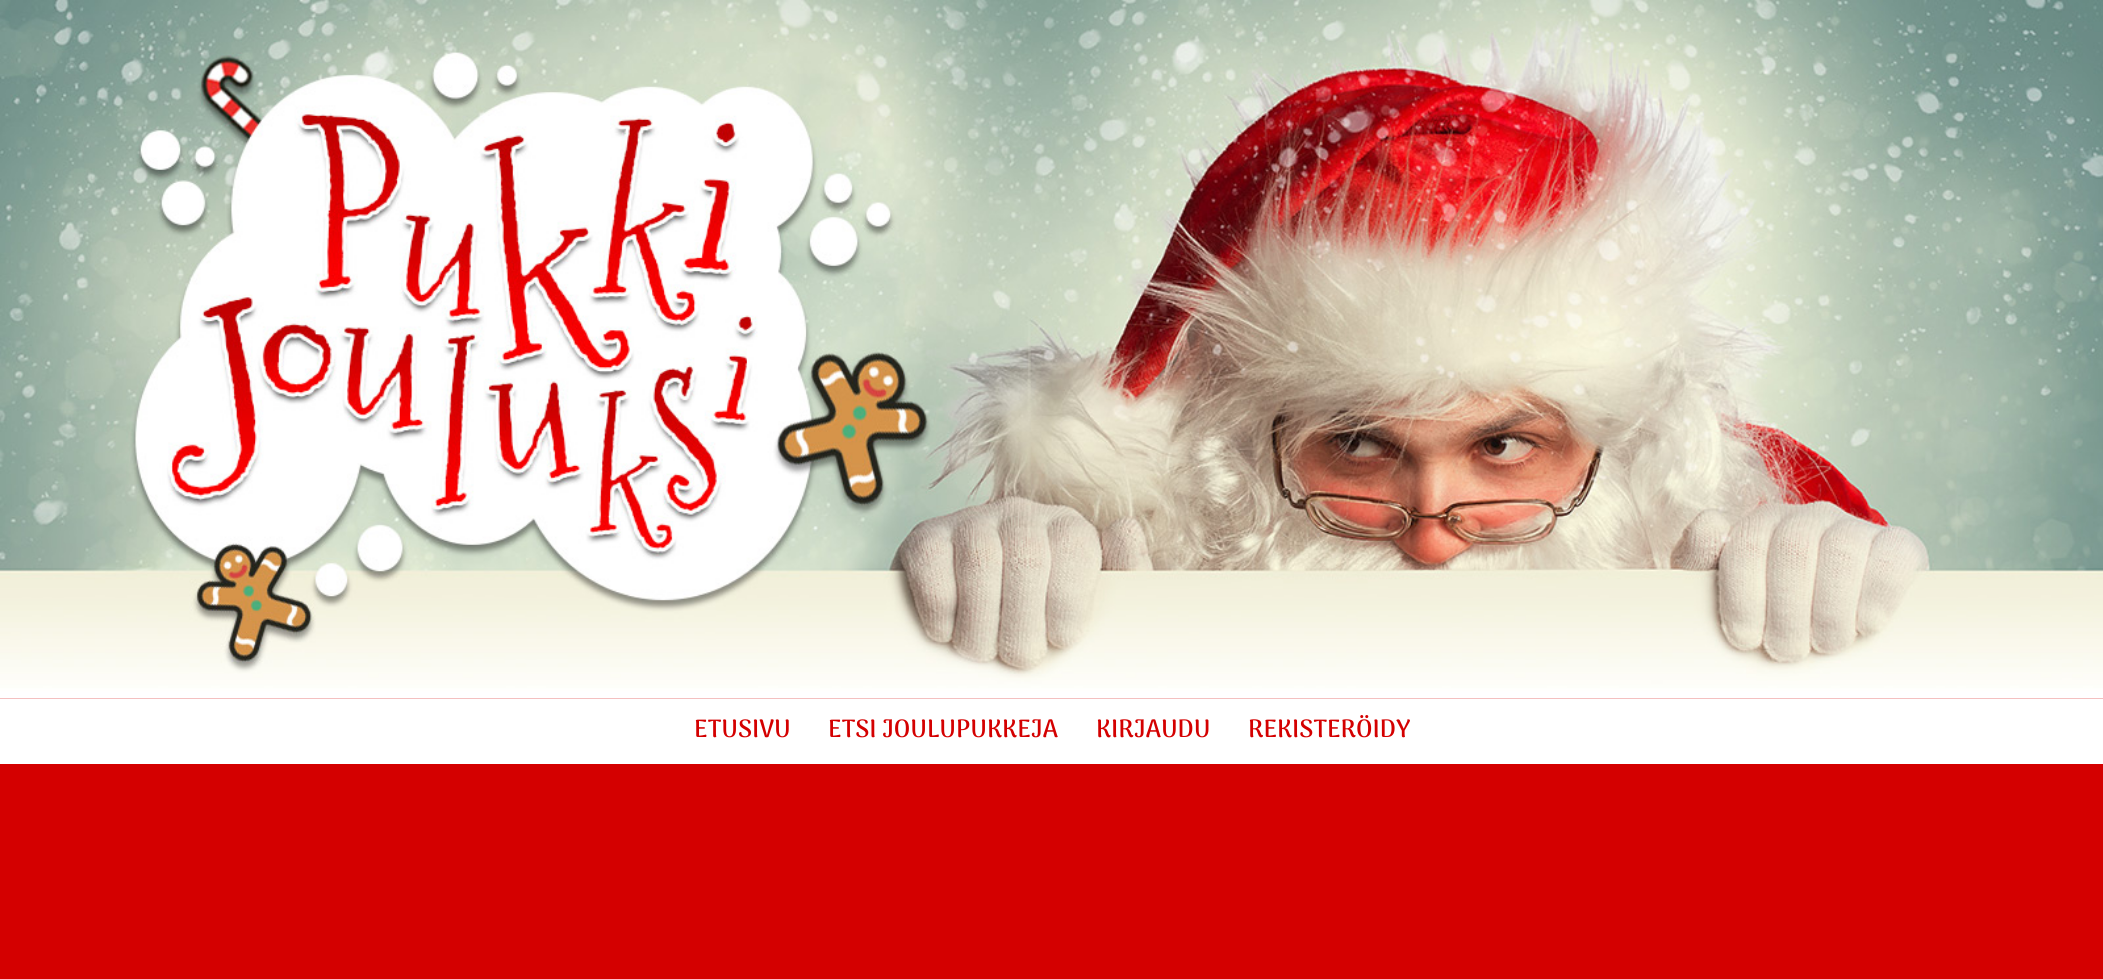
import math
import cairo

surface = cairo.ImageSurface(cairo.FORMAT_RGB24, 2103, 979)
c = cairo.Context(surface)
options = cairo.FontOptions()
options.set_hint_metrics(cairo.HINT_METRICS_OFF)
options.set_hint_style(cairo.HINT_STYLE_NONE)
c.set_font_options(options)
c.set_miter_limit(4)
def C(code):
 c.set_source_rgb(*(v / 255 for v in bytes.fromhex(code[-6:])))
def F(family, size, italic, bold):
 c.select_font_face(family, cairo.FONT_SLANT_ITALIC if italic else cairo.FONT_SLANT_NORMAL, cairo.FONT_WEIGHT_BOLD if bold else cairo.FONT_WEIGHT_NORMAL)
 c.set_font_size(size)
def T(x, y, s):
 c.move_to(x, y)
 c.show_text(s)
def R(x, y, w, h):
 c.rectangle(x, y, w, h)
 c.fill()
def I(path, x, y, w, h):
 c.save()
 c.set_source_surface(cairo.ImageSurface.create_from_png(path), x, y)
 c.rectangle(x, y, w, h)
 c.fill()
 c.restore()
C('d40000')
c.paint()
I('1.png',0,0,2103,699)
C('ffffff')
R(0,699,2103,65)
F('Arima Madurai',25,0,1)
C('d40000')
T(694,737,'ETUSIVU')
T(828,737,'ETSI JOULUPUKKEJA')
T(1096,737,'KIRJAUDU')
T(1248,737,'REKISTERÖIDY')
surface.write_to_png('o.png')
